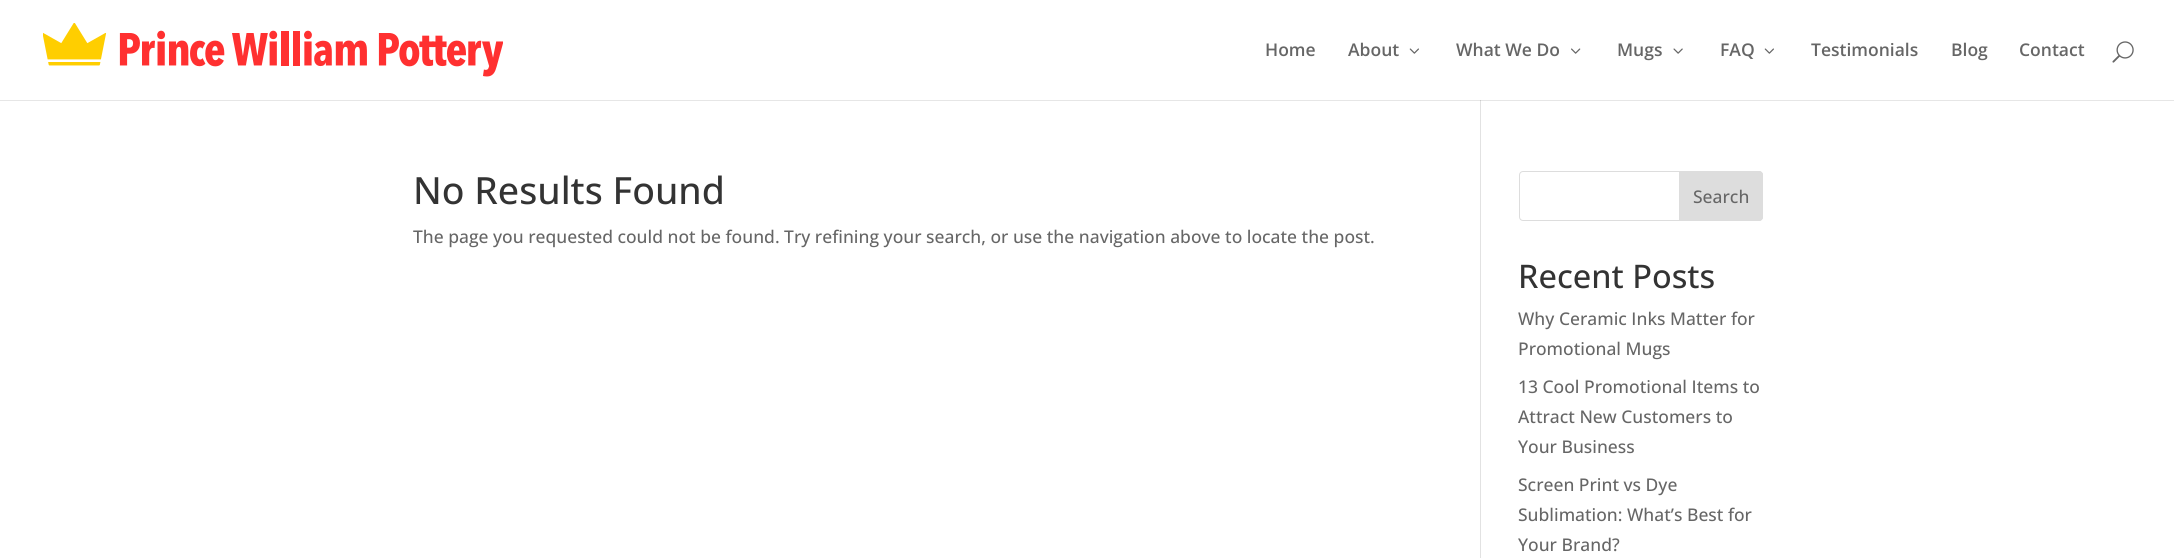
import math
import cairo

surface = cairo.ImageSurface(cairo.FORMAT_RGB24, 2174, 558)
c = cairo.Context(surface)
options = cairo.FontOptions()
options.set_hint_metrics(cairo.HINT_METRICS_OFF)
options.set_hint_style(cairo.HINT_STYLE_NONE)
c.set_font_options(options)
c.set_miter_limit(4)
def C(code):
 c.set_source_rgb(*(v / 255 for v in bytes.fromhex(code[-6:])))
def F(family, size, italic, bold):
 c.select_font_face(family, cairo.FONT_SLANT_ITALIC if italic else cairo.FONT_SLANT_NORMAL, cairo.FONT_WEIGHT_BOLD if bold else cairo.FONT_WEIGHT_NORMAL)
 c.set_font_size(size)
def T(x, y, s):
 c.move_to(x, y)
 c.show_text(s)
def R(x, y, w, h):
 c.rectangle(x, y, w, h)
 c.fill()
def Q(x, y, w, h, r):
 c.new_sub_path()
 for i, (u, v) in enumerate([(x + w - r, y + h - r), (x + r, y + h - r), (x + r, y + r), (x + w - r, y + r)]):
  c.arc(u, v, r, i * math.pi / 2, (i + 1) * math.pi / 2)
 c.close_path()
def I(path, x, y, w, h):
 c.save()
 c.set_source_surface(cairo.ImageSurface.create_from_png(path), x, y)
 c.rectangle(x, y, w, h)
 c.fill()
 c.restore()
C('ffffff')
c.paint()
C('e6e6e6')
R(0,100,2174,1)
C('e2e2e2')
R(1480,99,1,459)
C('ffffff')
R(1480,99,1,1)
I('1.png',43,23,460,54)
F('Open Sans SemiBold',17.5,0,0)
C('666666')
T(1265,56,'Home')
T(1348,56,'About')
I('2.png',1409,48,10,6)
T(1456,56,'What We Do')
I('3.png',1571,48,10,6)
T(1617,56,'Mugs')
I('4.png',1673,48,10,6)
T(1720,56,'FAQ')
I('2.png',1764,48,10,6)
T(1811,56,'Testimonials')
T(1951,56,'Blog')
T(2019,56,'Contact')
I('5.png',2112,41,22,22)
C('cbcbcb')
R(1480,100,1,1)
F('Open Sans Medium',37.5,0,0)
C('333333')
T(413,204,'No Results Found')
F('Open Sans Medium',17.5,0,0)
C('666666')
T(413,243,'The page you requested could not be found. Try refining your search, or use the navigation above to locate the post.')
Q(1519.5,171.5,243,49,3.5)
C('dddddd')
c.set_line_width(1)
c.stroke()
c.new_path()
c.move_to(1679.5,171.5)
c.line_to(1759,171.5)
c.curve_to(1761,171.5,1762.5,173,1762.5,175)
c.line_to(1762.5,217)
c.curve_to(1762.5,219,1761,220.5,1759,220.5)
c.line_to(1679.5,220.5)
c.close_path()
c.fill_preserve()
c.stroke()
C('666666')
T(1693,203,'Search')
F('Open Sans Medium',32.5,0,0)
C('333333')
T(1518,288,'Recent Posts')
F('Open Sans Medium',17.5,0,0)
C('666666')
T(1518,325,'Why Ceramic Inks Matter for')
T(1518,355,'Promotional Mugs')
T(1518,393,'13 Cool Promotional Items to')
T(1518,423,'Attract New Customers to')
T(1518,453,'Your Business')
T(1518,491,'Screen Print vs Dye')
T(1518,521,'Sublimation: What’s Best for')
T(1518,551,'Your Brand?')
surface.write_to_png('o.png')
